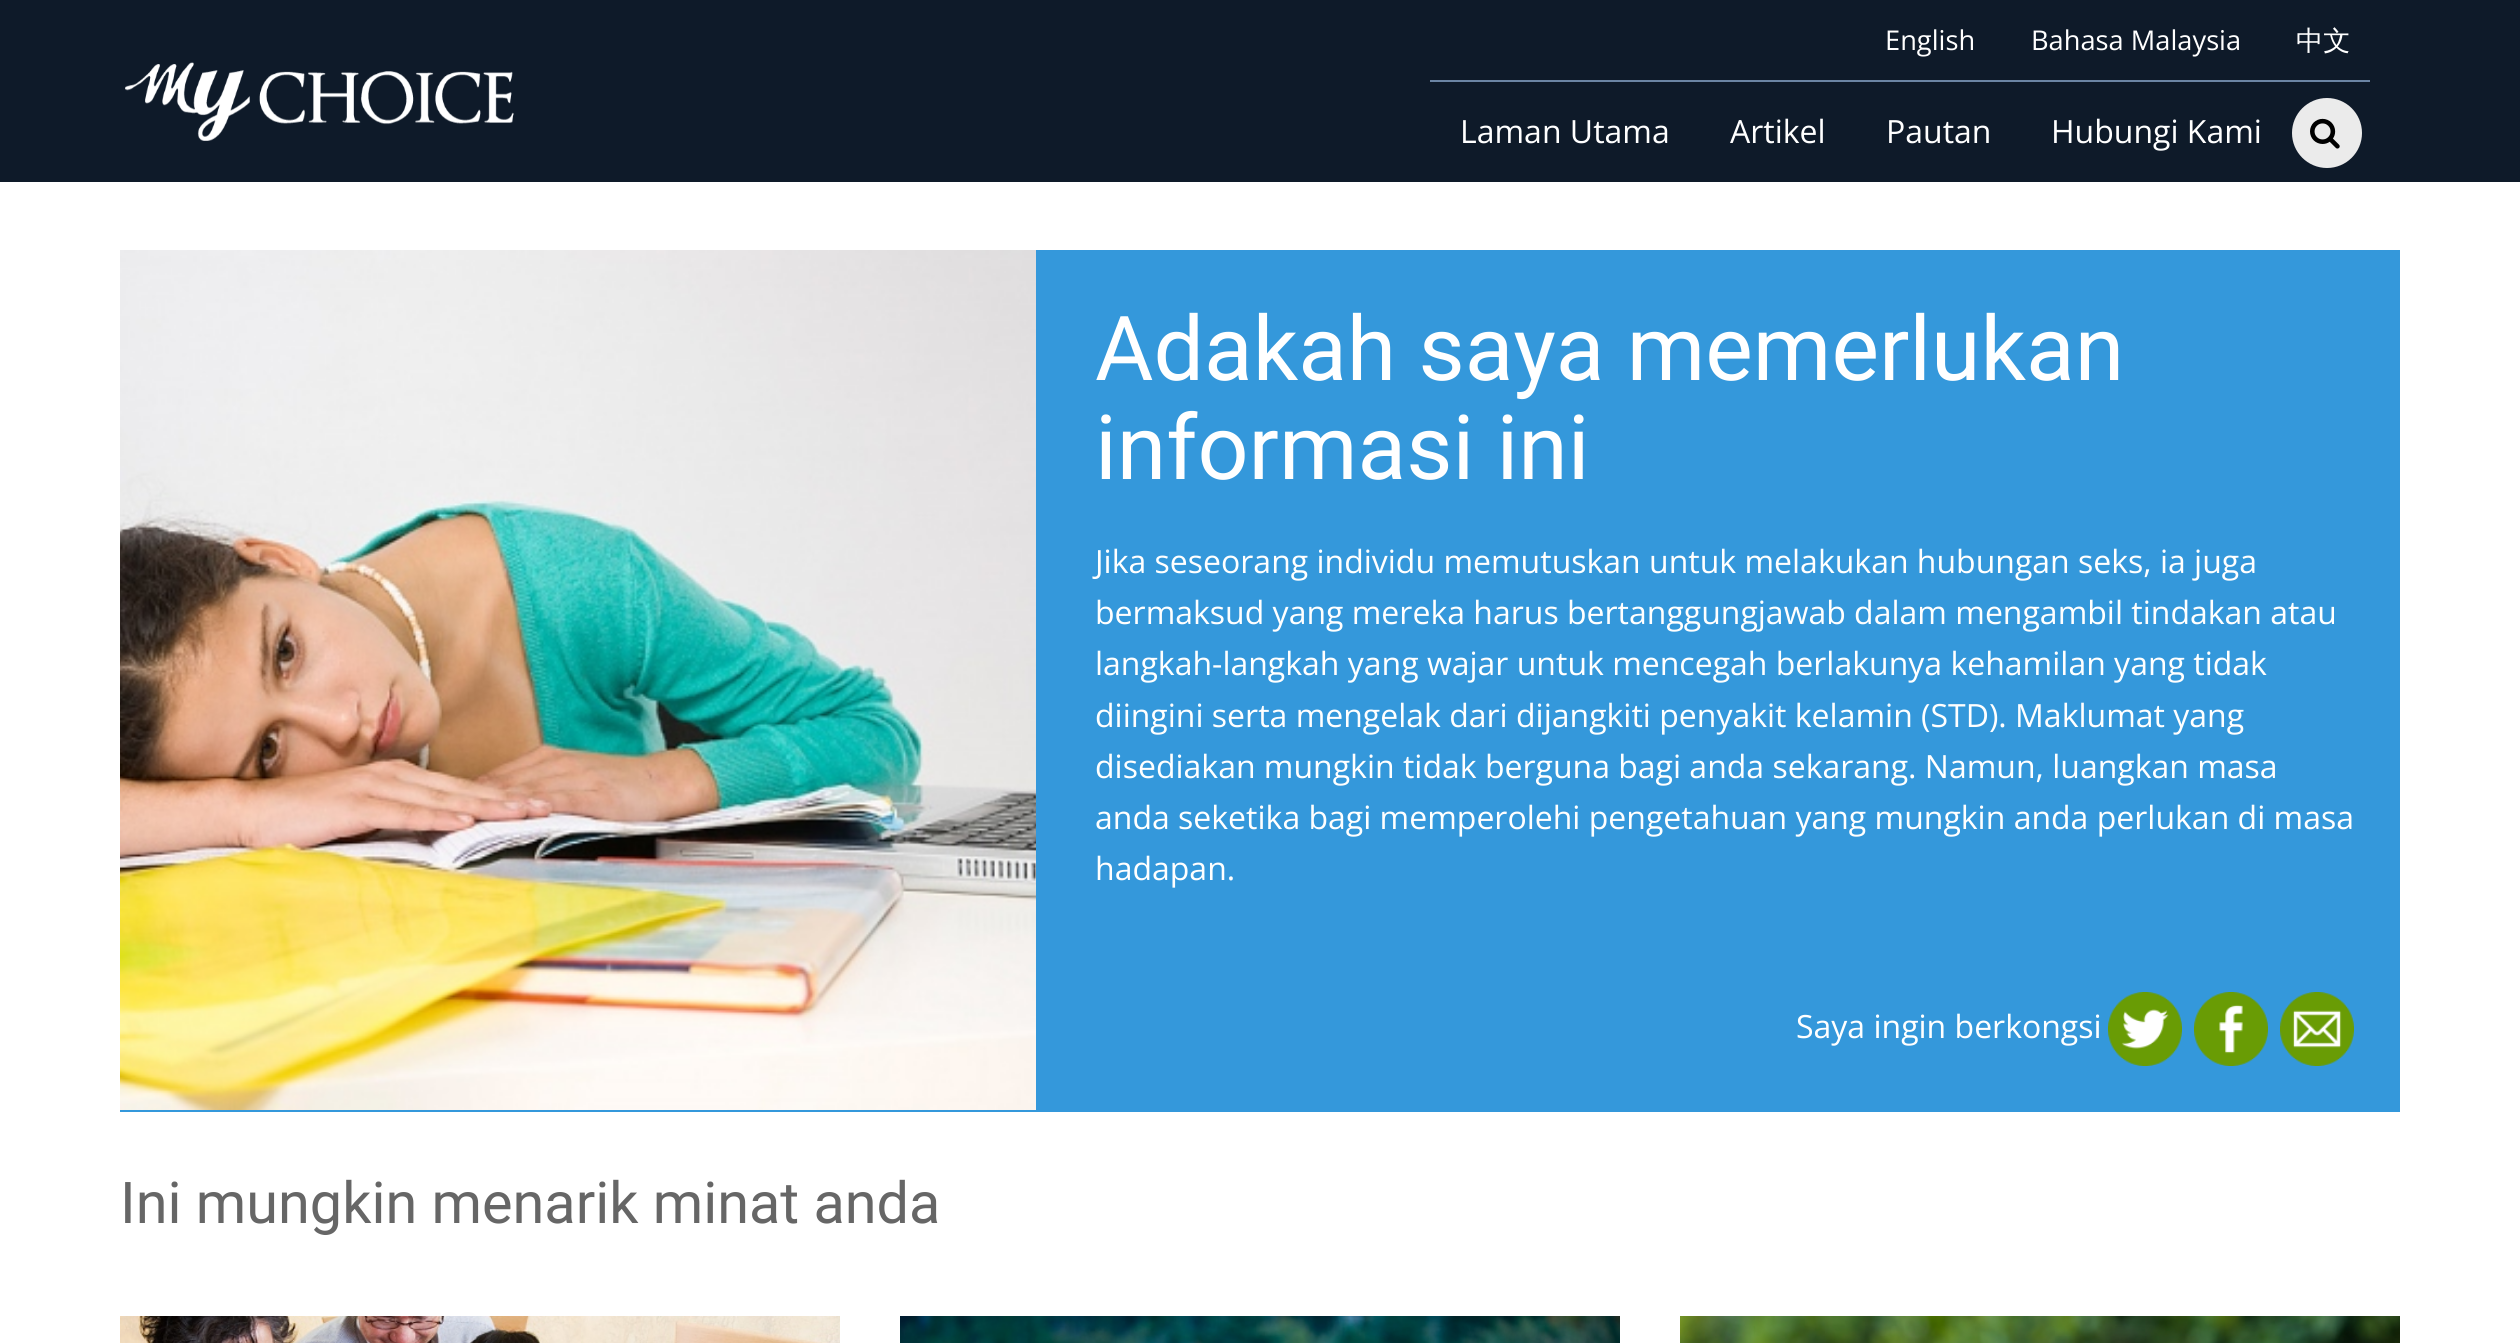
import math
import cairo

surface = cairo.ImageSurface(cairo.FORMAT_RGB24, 2520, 1343)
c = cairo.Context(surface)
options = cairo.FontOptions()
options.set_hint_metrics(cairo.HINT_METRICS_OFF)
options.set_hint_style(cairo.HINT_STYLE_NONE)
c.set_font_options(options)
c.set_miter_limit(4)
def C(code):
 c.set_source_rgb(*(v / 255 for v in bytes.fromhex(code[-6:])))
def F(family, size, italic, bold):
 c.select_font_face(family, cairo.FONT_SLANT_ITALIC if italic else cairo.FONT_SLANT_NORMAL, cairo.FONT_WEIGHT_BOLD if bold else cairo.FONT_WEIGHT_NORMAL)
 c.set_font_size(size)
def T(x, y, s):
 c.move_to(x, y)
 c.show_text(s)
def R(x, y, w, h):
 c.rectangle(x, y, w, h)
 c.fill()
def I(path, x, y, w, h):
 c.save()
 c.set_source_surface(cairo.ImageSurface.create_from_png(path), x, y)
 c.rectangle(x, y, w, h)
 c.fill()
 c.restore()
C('ffffff')
c.paint()
C('0e1a29')
R(0,0,2520,182)
I('1.png',125,62,389,79)
C('6b85a4')
R(1430,80,940,2)
F('Open Sans',27.25,0,0)
C('ffffff')
T(1885,50,'English')
T(2031,50,'Bahasa Malaysia')
F('WenQuanYi Zen Hei Medium',27.25,0,0)
T(2296,50,'中文')
F('Open Sans',32,0,0)
T(1460,143,'Laman Utama')
T(1730,143,'Artikel')
T(1886,143,'Pautan')
T(2051,143,'Hubungi Kami')
C('ebebeb')
c.new_path()
c.arc(2327,133,35,0,2 * math.pi)
c.fill()
I('2.png',2310,118,30,31)
C('3498db')
R(120,250,2280,862)
I('3.png',120,250,916,860)
F('Roboto',89.6,0,0)
C('ffffff')
T(1095,380,'Adakah saya memerlukan')
T(1095,479,'informasi ini')
F('Open Sans',32,0,0)
T(1095,573,'Jika seseorang individu memutuskan untuk melakukan hubungan seks, ia juga')
T(1095,624,'bermaksud yang mereka harus bertanggungjawab dalam mengambil tindakan atau')
T(1095,675,'langkah-langkah yang wajar untuk mencegah berlakunya kehamilan yang tidak')
T(1095,727,'diingini serta mengelak dari dijangkiti penyakit kelamin (STD). Maklumat yang')
T(1095,778,'disediakan mungkin tidak berguna bagi anda sekarang. Namun, luangkan masa')
T(1095,829,'anda seketika bagi memperolehi pengetahuan yang mungkin anda perlukan di masa')
T(1095,880,'hadapan.')
T(1796,1038,'Saya ingin berkongsi')
I('4.png',2108,992,74,74)
I('5.png',2194,992,74,74)
I('6.png',2280,992,74,74)
F('Roboto',57.6,0,0)
C('666666')
T(120,1223,'Ini mungkin menarik minat anda')
I('7.png',120,1316,720,27)
I('8.png',900,1316,720,27)
I('9.png',1680,1316,720,27)
surface.write_to_png('o.png')
